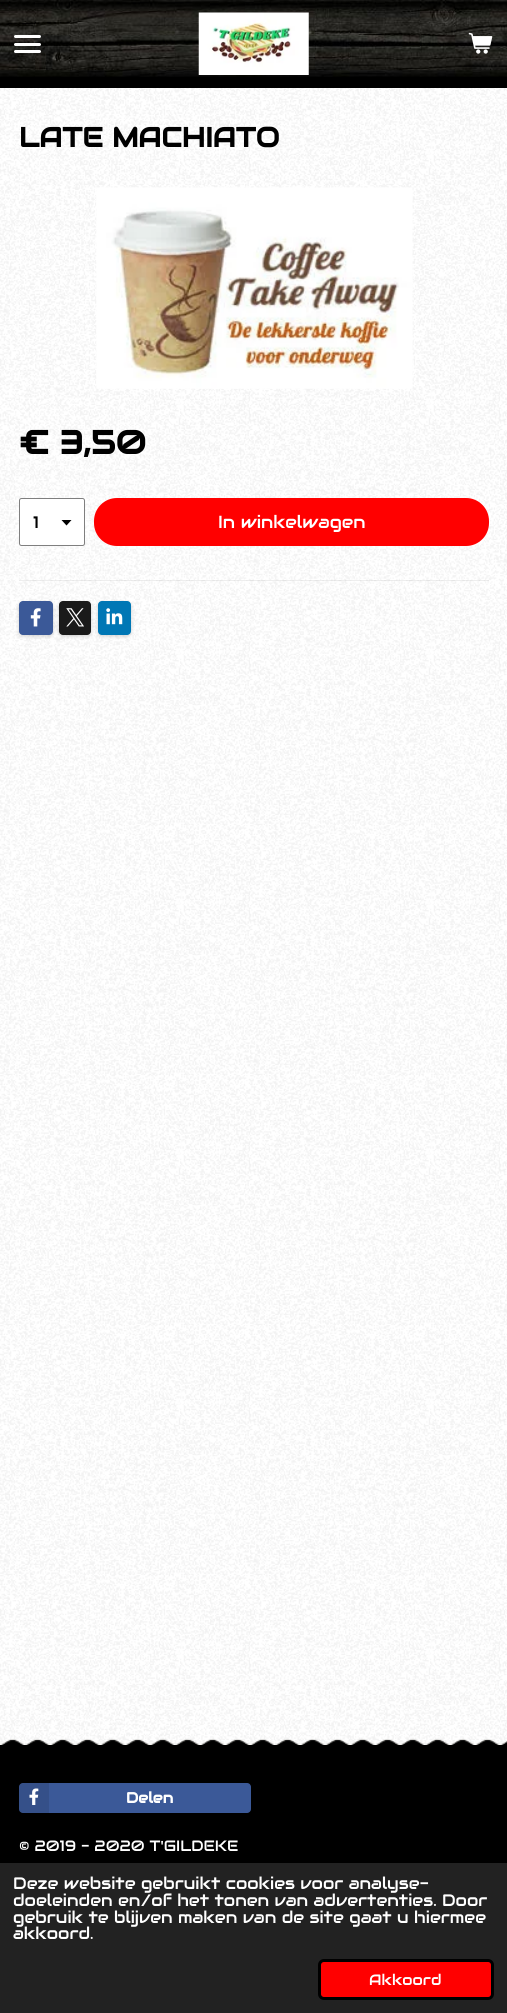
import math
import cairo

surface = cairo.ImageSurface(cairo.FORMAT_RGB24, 507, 2013)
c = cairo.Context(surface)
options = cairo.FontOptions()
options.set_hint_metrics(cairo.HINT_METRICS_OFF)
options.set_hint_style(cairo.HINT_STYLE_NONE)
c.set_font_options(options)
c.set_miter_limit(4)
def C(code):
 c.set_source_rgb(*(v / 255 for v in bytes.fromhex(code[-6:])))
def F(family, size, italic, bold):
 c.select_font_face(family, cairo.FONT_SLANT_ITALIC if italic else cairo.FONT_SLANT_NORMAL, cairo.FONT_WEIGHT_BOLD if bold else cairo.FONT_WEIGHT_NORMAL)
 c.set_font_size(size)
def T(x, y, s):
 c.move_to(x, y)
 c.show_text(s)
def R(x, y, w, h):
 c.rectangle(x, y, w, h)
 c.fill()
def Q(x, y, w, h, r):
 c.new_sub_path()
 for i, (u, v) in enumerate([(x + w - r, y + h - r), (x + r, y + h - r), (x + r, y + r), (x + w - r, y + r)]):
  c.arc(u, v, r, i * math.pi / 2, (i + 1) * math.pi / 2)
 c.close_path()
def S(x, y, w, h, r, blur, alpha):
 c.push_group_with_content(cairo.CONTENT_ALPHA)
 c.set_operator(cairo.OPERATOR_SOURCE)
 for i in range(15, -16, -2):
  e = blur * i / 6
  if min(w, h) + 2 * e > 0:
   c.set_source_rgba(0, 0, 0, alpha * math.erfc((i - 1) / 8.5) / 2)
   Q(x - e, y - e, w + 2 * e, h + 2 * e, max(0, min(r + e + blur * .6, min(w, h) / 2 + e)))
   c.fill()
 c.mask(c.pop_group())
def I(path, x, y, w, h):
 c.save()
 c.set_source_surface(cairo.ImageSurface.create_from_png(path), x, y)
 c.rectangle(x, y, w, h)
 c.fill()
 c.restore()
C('ffffff')
c.paint()
I('1.png',0,88,507,1657)
C('000000')
R(0,77,507,11)
I('2.png',0,0,507,77)
c.set_source_rgba(0,0,0,0.05)
R(0,16,55,48)
C('ffffff')
Q(14,43,27,3,1.5)
c.fill()
Q(14,35,27,3,1.5)
c.fill()
Q(14,50,27,3,1.5)
c.fill()
I('3.png',198,12,111,63)
I('4.png',468,32,25,22)
F('Audiowide',27.5,0,1)
C('000000')
T(19,147,'LATE MACHIATO')
I('5.png',96,187,317,202)
F('Audiowide',33,0,1)
T(19,454,'€ 3,50')
C('ffffff')
Q(19,498,66,48,2.5)
c.fill()
C('000000')
c.new_path()
c.move_to(66.5,525.5)
c.line_to(61.5,520)
c.line_to(71.5,520)
c.close_path()
c.fill()
Q(19.5,498.5,65,47,2)
c.set_source_rgba(0,0,0,0.5)
c.set_line_width(1)
c.stroke()
F('Audiowide',16.6,0,0)
C('000000')
T(33,528,'1')
C('ff0000')
Q(94,498,395,48,23)
c.fill()
F('Audiowide',17.5,0,0)
C('ffffff')
T(218,528,'In winkelwagen')
c.set_source_rgba(0,0,0,0.07)
R(19,580,470,1)
C('000000')
S(19,603,34,33,4,2,.2)
C('3b5998')
Q(19,601,34,34,4)
c.fill()
I('6.png',30,608,11,19)
C('000000')
S(59,603,32,33,4,2,.2)
C('1a1a1a')
Q(59,601,32,34,4)
c.fill()
I('7.png',66,608,18,19)
C('000000')
S(98,603,33,33,4,2,.2)
C('0077b5')
Q(98,601,33,34,4)
c.fill()
I('8.png',106,608,17,17)
C('000000')
R(0,1745,507,118)
I('9.png',0,1738,507,7)
C('3b5998')
Q(19,1783,232,30,4)
c.fill()
c.set_source_rgba(0,0,0,0.1)
c.new_path()
c.move_to(23,1783)
c.line_to(49,1783)
c.line_to(49,1813)
c.line_to(23,1813)
c.curve_to(21,1813,19,1811,19,1809)
c.line_to(19,1787)
c.curve_to(19,1785,21,1783,23,1783)
c.close_path()
c.fill()
I('10.png',29,1788,10,17)
F('Audiowide',15,0,1)
C('ffffff')
T(126,1803,'Delen')
F('Audiowide',15,0,0)
T(19,1851,'© 2019 - 2020 T\'GILDEKE')
C('222222')
R(0,1863,507,150)
F('Audiowide',16.6,0,0)
C('ffffff')
T(13,1889,'Deze website gebruikt cookies voor analyse-')
T(13,1906,'doeleinden en/of het tonen van advertenties. Door')
T(13,1923,'gebruik te blijven maken van de site gaat u hiermee')
T(13,1939,'akkoord.')
C('ff0000')
Q(319.5,1960.5,173,38,4.5)
c.fill_preserve()
C('000000')
c.set_line_width(3)
c.stroke()
F('Audiowide',15,0,0)
C('ffffff')
T(369,1985,'Akkoord')
surface.write_to_png('o.png')
